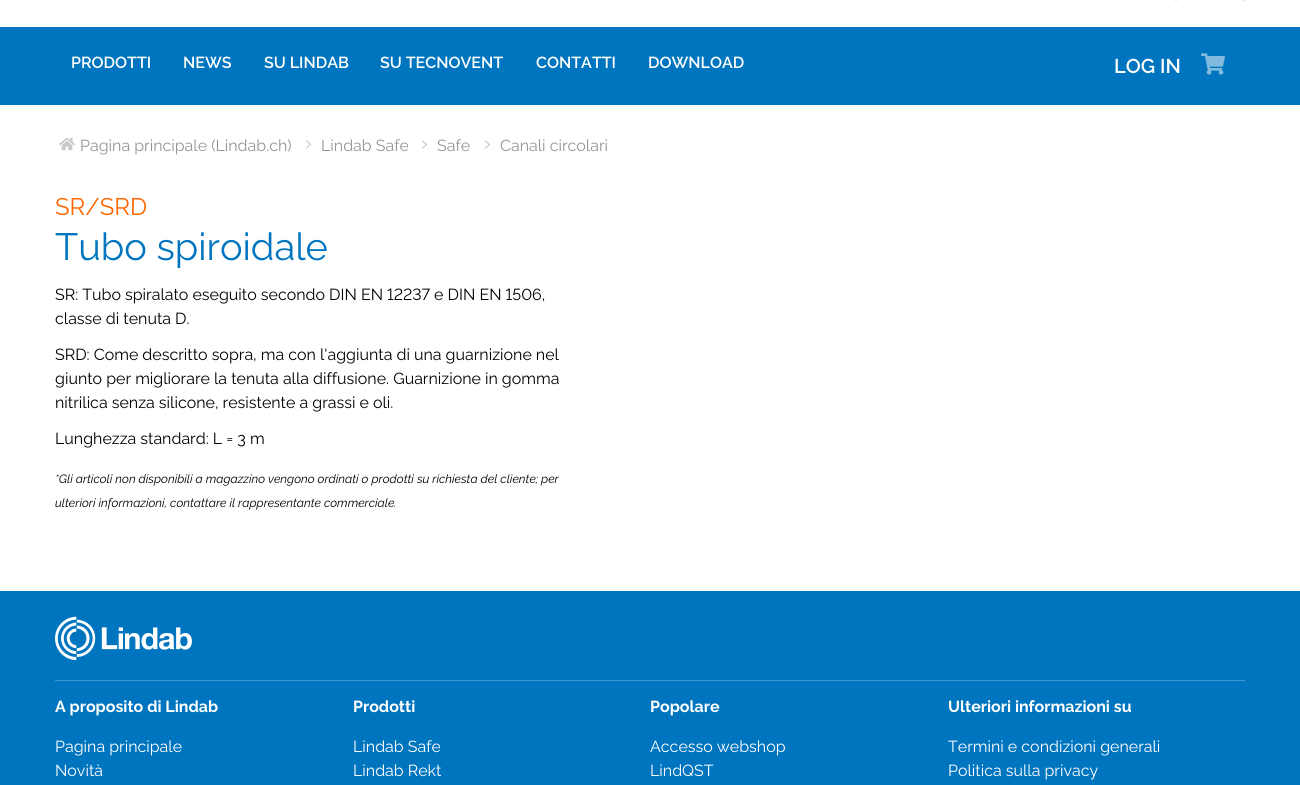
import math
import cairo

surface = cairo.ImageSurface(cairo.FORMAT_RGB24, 1300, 785)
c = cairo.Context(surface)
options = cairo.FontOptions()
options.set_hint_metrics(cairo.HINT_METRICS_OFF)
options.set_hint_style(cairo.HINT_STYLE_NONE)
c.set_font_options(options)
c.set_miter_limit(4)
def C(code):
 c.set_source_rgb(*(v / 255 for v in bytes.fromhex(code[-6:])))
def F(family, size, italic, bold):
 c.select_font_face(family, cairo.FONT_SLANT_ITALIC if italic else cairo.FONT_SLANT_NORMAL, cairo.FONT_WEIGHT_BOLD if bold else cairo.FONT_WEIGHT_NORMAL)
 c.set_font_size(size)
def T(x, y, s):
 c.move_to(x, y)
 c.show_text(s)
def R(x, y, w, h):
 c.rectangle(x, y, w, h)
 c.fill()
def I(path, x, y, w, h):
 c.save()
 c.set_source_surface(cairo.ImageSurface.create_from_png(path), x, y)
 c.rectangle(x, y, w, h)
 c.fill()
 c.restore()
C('ffffff')
c.paint()
I('1.png',75,0,1,1)
C('e4e4e4')
R(1243,0,2,1)
R(1175,0,2,1)
C('0075bf')
R(0,27,1300,78)
F('Raleway Thin',16,0,0)
C('ffffff')
T(71,68,'PRODOTTI')
T(183,68,'NEWS')
T(264,68,'SU LINDAB')
T(380,68,'SU TECNOVENT')
T(536,68,'CONTATTI')
T(648,68,'DOWNLOAD')
F('Raleway Thin',20,0,0)
T(1114,73,'LOG IN')
I('2.png',1201,53,24,22)
I('3.png',59,137,16,14)
F('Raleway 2 Thin',16,0,0)
C('959595')
T(80,151,'Pagina principale (Lindab.ch)')
c.new_path()
c.move_to(306.5,148)
c.line_to(310.5,144.5)
c.line_to(306.5,141)
C('c9c9c9')
c.set_line_width(1.2)
c.set_line_cap(cairo.LINE_CAP_ROUND)
c.set_line_join(cairo.LINE_JOIN_ROUND)
c.stroke()
C('959595')
T(321,151,'Lindab Safe')
c.new_path()
c.move_to(422.5,148)
c.line_to(426.5,144.5)
c.line_to(422.5,141)
C('c9c9c9')
c.stroke()
C('959595')
T(437,151,'Safe')
c.new_path()
c.move_to(485.5,148)
c.line_to(489.5,144.5)
c.line_to(485.5,141)
C('c9c9c9')
c.stroke()
C('959595')
T(500,151,'Canali circolari')
F('Raleway 2 Thin',24,0,0)
C('ff6600')
T(55,215,'SR/SRD')
F('Raleway 2 Thin',38,0,0)
C('0075bf')
T(55,260,'Tubo spiroidale')
F('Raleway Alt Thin',16,0,0)
C('000000')
T(55,300,'SR: Tubo spiralato eseguito secondo DIN EN 12237 e DIN EN 1506,')
F('Raleway 2 Thin',16,0,0)
T(55,324,'classe di tenuta D.')
T(55,360,'SRD: Come descritto sopra, ma con l\'aggiunta di una guarnizione nel')
T(55,384,'giunto per migliorare la tenuta alla diffusione. Guarnizione in gomma')
T(55,408,'nitrilica senza silicone, resistente a grassi e oli.')
T(55,444,'Lunghezza standard: L = 3 m')
F('Raleway Thin',12,1,0)
T(55,483,'*Gli articoli non disponibili a magazzino vengono ordinati o prodotti su richiesta del cliente; per')
T(55,507,'ulteriori informazioni, contattare il rappresentante commerciale.')
C('0075bf')
R(0,591,1300,194)
I('4.png',55,616,137,45)
C('4098cf')
R(55,680,1190,1)
F('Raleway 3 Thin',16,0,0)
C('ffffff')
T(55,712,'A proposito di Lindab')
F('Raleway 2 Thin',16,0,0)
T(55,752,'Pagina principale')
T(55,776,'Novità')
F('Raleway 3 Thin',16,0,0)
T(353,712,'Prodotti')
F('Raleway 2 Thin',16,0,0)
T(353,752,'Lindab Safe')
T(353,776,'Lindab Rekt')
F('Raleway 3 Thin',16,0,0)
T(650,712,'Popolare')
F('Raleway 2 Thin',16,0,0)
T(650,752,'Accesso webshop')
T(650,776,'LindQST')
F('Raleway 3 Thin',16,0,0)
T(948,712,'Ulteriori informazioni su')
F('Raleway 2 Thin',16,0,0)
T(948,752,'Termini e condizioni generali')
T(948,776,'Politica sulla privacy')
surface.write_to_png('o.png')
